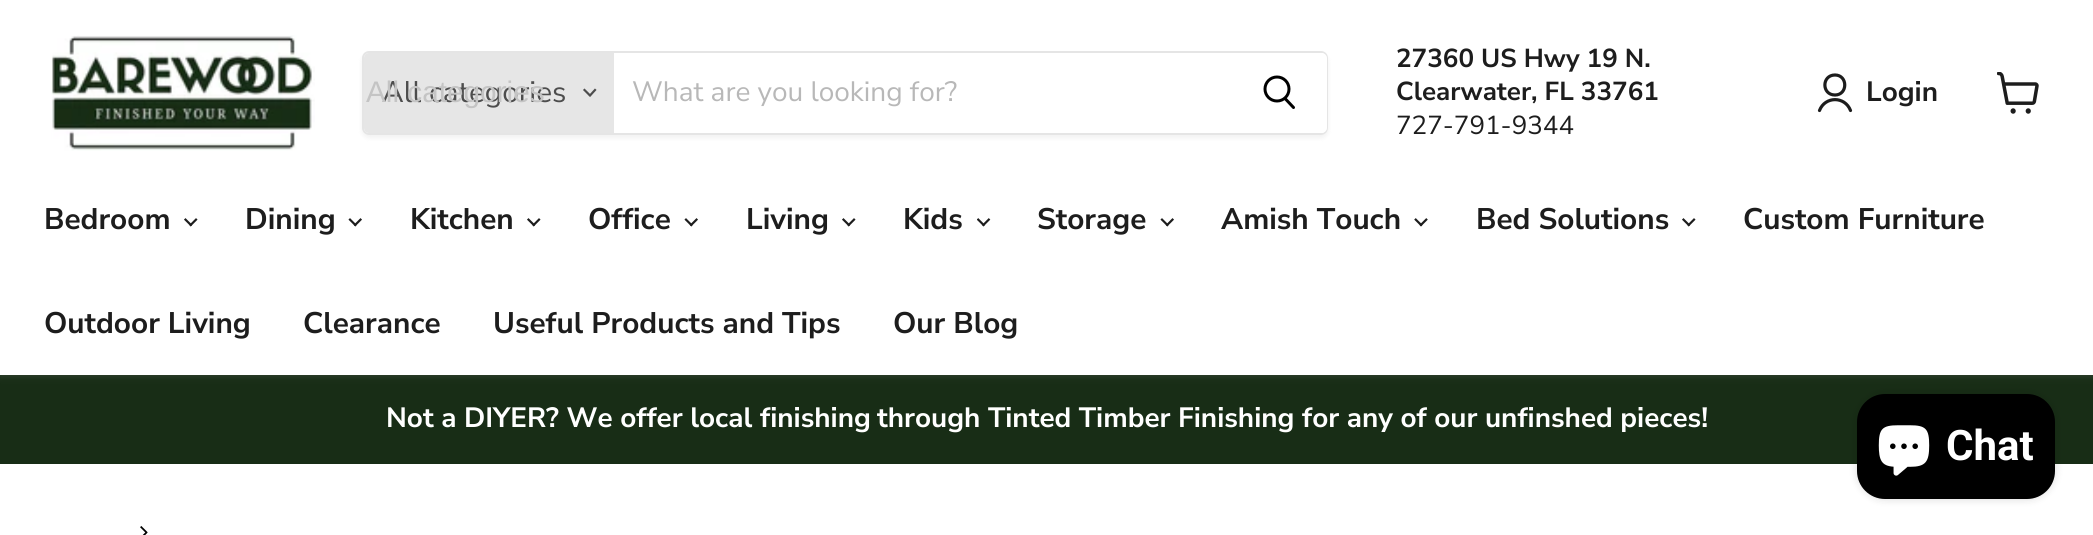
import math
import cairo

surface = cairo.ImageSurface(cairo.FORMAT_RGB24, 2093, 535)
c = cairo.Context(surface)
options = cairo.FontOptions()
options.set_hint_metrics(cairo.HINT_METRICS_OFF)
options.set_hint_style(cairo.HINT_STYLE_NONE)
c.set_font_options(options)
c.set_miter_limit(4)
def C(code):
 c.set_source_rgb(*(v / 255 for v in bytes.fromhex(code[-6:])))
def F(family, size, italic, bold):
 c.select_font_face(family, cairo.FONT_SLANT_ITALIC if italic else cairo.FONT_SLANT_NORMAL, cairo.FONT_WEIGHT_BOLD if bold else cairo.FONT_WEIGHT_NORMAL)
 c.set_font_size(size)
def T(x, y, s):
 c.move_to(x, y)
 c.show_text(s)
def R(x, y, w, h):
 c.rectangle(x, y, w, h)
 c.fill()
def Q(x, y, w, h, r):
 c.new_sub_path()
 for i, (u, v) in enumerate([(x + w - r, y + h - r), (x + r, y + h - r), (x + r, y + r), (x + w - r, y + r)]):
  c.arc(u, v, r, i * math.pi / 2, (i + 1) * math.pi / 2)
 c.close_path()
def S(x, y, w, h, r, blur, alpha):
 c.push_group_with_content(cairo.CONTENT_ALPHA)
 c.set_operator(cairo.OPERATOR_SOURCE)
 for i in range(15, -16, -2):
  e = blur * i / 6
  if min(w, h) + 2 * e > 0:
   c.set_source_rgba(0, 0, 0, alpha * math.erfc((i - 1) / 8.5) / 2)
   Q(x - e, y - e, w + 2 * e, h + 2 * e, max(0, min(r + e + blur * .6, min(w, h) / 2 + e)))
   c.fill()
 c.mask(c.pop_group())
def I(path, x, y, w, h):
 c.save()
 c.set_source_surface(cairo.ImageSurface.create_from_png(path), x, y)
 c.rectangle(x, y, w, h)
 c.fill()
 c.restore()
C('ffffff')
c.paint()
C('182d16')
R(0,375,2093,89)
C('808080')
S(0,2,2093,374,0,3.5,.25)
C('ffffff')
R(0,0,2093,375)
I('1.png',51,35,264,116)
c.save()
c.set_fill_rule(cairo.FILL_RULE_EVEN_ODD)
c.new_path()
c.move_to(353,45)
c.line_to(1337,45)
c.line_to(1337,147)
c.line_to(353,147)
c.close_path()
c.move_to(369,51)
c.line_to(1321,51)
c.curve_to(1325,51,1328,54,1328,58)
c.line_to(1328,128)
c.curve_to(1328,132,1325,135,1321,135)
c.line_to(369,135)
c.curve_to(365,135,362,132,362,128)
c.line_to(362,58)
c.curve_to(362,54,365,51,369,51)
c.close_path()
c.clip()
C('808080')
S(362,54,966,84,7,2.5,.11)
c.restore()
Q(363,52,964,82,6)
c.set_source_rgba(0.502,0.502,0.502,0.2)
c.stroke()
C('e6e6e6')
c.new_path()
c.move_to(369,53)
c.line_to(614,53)
c.line_to(614,133)
c.line_to(369,133)
c.curve_to(366,133,364,131,364,128)
c.line_to(364,58)
c.curve_to(364,55,366,53,369,53)
c.close_path()
c.fill()
F('Nunito Sans',29.75,0,0)
C('4d4d4d')
T(382,102,'All categories')
F('Liberation Sans',29.75,0,0)
C('c4c4c4')
T(366,102,'All categories')
c.new_path()
c.move_to(590,95.5)
c.line_to(595,90)
c.move_to(590,95.5)
c.line_to(584.5,90)
C('4d4d4d')
c.set_line_width(2.2)
c.set_line_cap(cairo.LINE_CAP_SQUARE)
c.stroke()
F('Nunito Sans',28,0,0)
C('b8b8b8')
T(632,101,'What are you looking for?')
C('ffffff')
c.new_path()
c.move_to(1233,54)
c.line_to(1322,54)
c.curve_to(1324,54,1326,56,1326,58)
c.line_to(1326,128)
c.curve_to(1326,130,1324,132,1322,132)
c.line_to(1233,132)
c.close_path()
c.fill_preserve()
c.set_line_width(2)
c.set_line_cap(cairo.LINE_CAP_BUTT)
c.stroke()
c.new_path()
c.move_to(1293.5,107.5)
c.line_to(1285.5,99)
C('000000')
c.set_line_width(3)
c.set_line_cap(cairo.LINE_CAP_ROUND)
c.stroke()
c.arc(1277,89,12,0,2 * math.pi)
c.set_line_cap(cairo.LINE_CAP_BUTT)
c.stroke()
F('Nunito Sans',26,0,1)
C('1d1d1d')
T(1396,67,'27360 US Hwy 19 N.')
T(1396,100,'Clearwater, FL 33761')
F('Nunito Sans',26,0,0)
T(1396,134,'727-791-9344')
c.new_path()
c.move_to(1835,95)
c.curve_to(1848,95,1848,75,1835,75)
c.curve_to(1821.5,75,1821.5,95,1835,95)
c.close_path()
c.move_to(1850.5,110.5)
c.curve_to(1845,96,1825,96,1819.5,110.5)
c.set_line_width(3.2)
c.set_line_cap(cairo.LINE_CAP_ROUND)
c.set_line_join(cairo.LINE_JOIN_ROUND)
c.stroke()
F('Nunito Sans',27.9,0,1)
T(1866,101,'Login')
I('2.png',1997,72,42,42)
F('Nunito Sans',29.75,0,1)
T(44,229,'Bedroom')
I('3.png',184,218,14,9)
T(245,229,'Dining')
I('4.png',348,218,14,9)
T(410,229,'Kitchen')
I('3.png',527,218,14,9)
T(588,229,'Office')
I('4.png',684,218,14,9)
T(746,229,'Living')
I('3.png',842,218,14,9)
T(903,229,'Kids')
I('5.png',977,218,14,9)
T(1037,229,'Storage')
I('4.png',1160,218,14,9)
T(1221,229,'Amish Touch')
I('6.png',1414,218,14,9)
T(1476,229,'Bed Solutions')
I('3.png',1682,218,14,9)
T(1743,229,'Custom Furniture')
T(44,333,'Outdoor Living')
T(303,333,'Clearance')
T(493,333,'Useful Products and Tips')
T(893,333,'Our Blog')
F('Nunito Sans',27.9,0,1)
C('ffffff')
T(386,427,'Not a DIYER? We offer local finishing')
T(877,427,'through Tinted Timber Finishing for any of our unfinshed pieces!')
C('000000')
S(1857,394,198,105,28,4.5,.15)
C('000000')
Q(1857,394,198,105,28)
c.fill()
I('7.png',1878,425,52,51)
F('Roboto',42,0,1)
C('ffffff')
T(1946,460,'Chat')
I('8.png',140,526,8,9)
surface.write_to_png('o.png')
